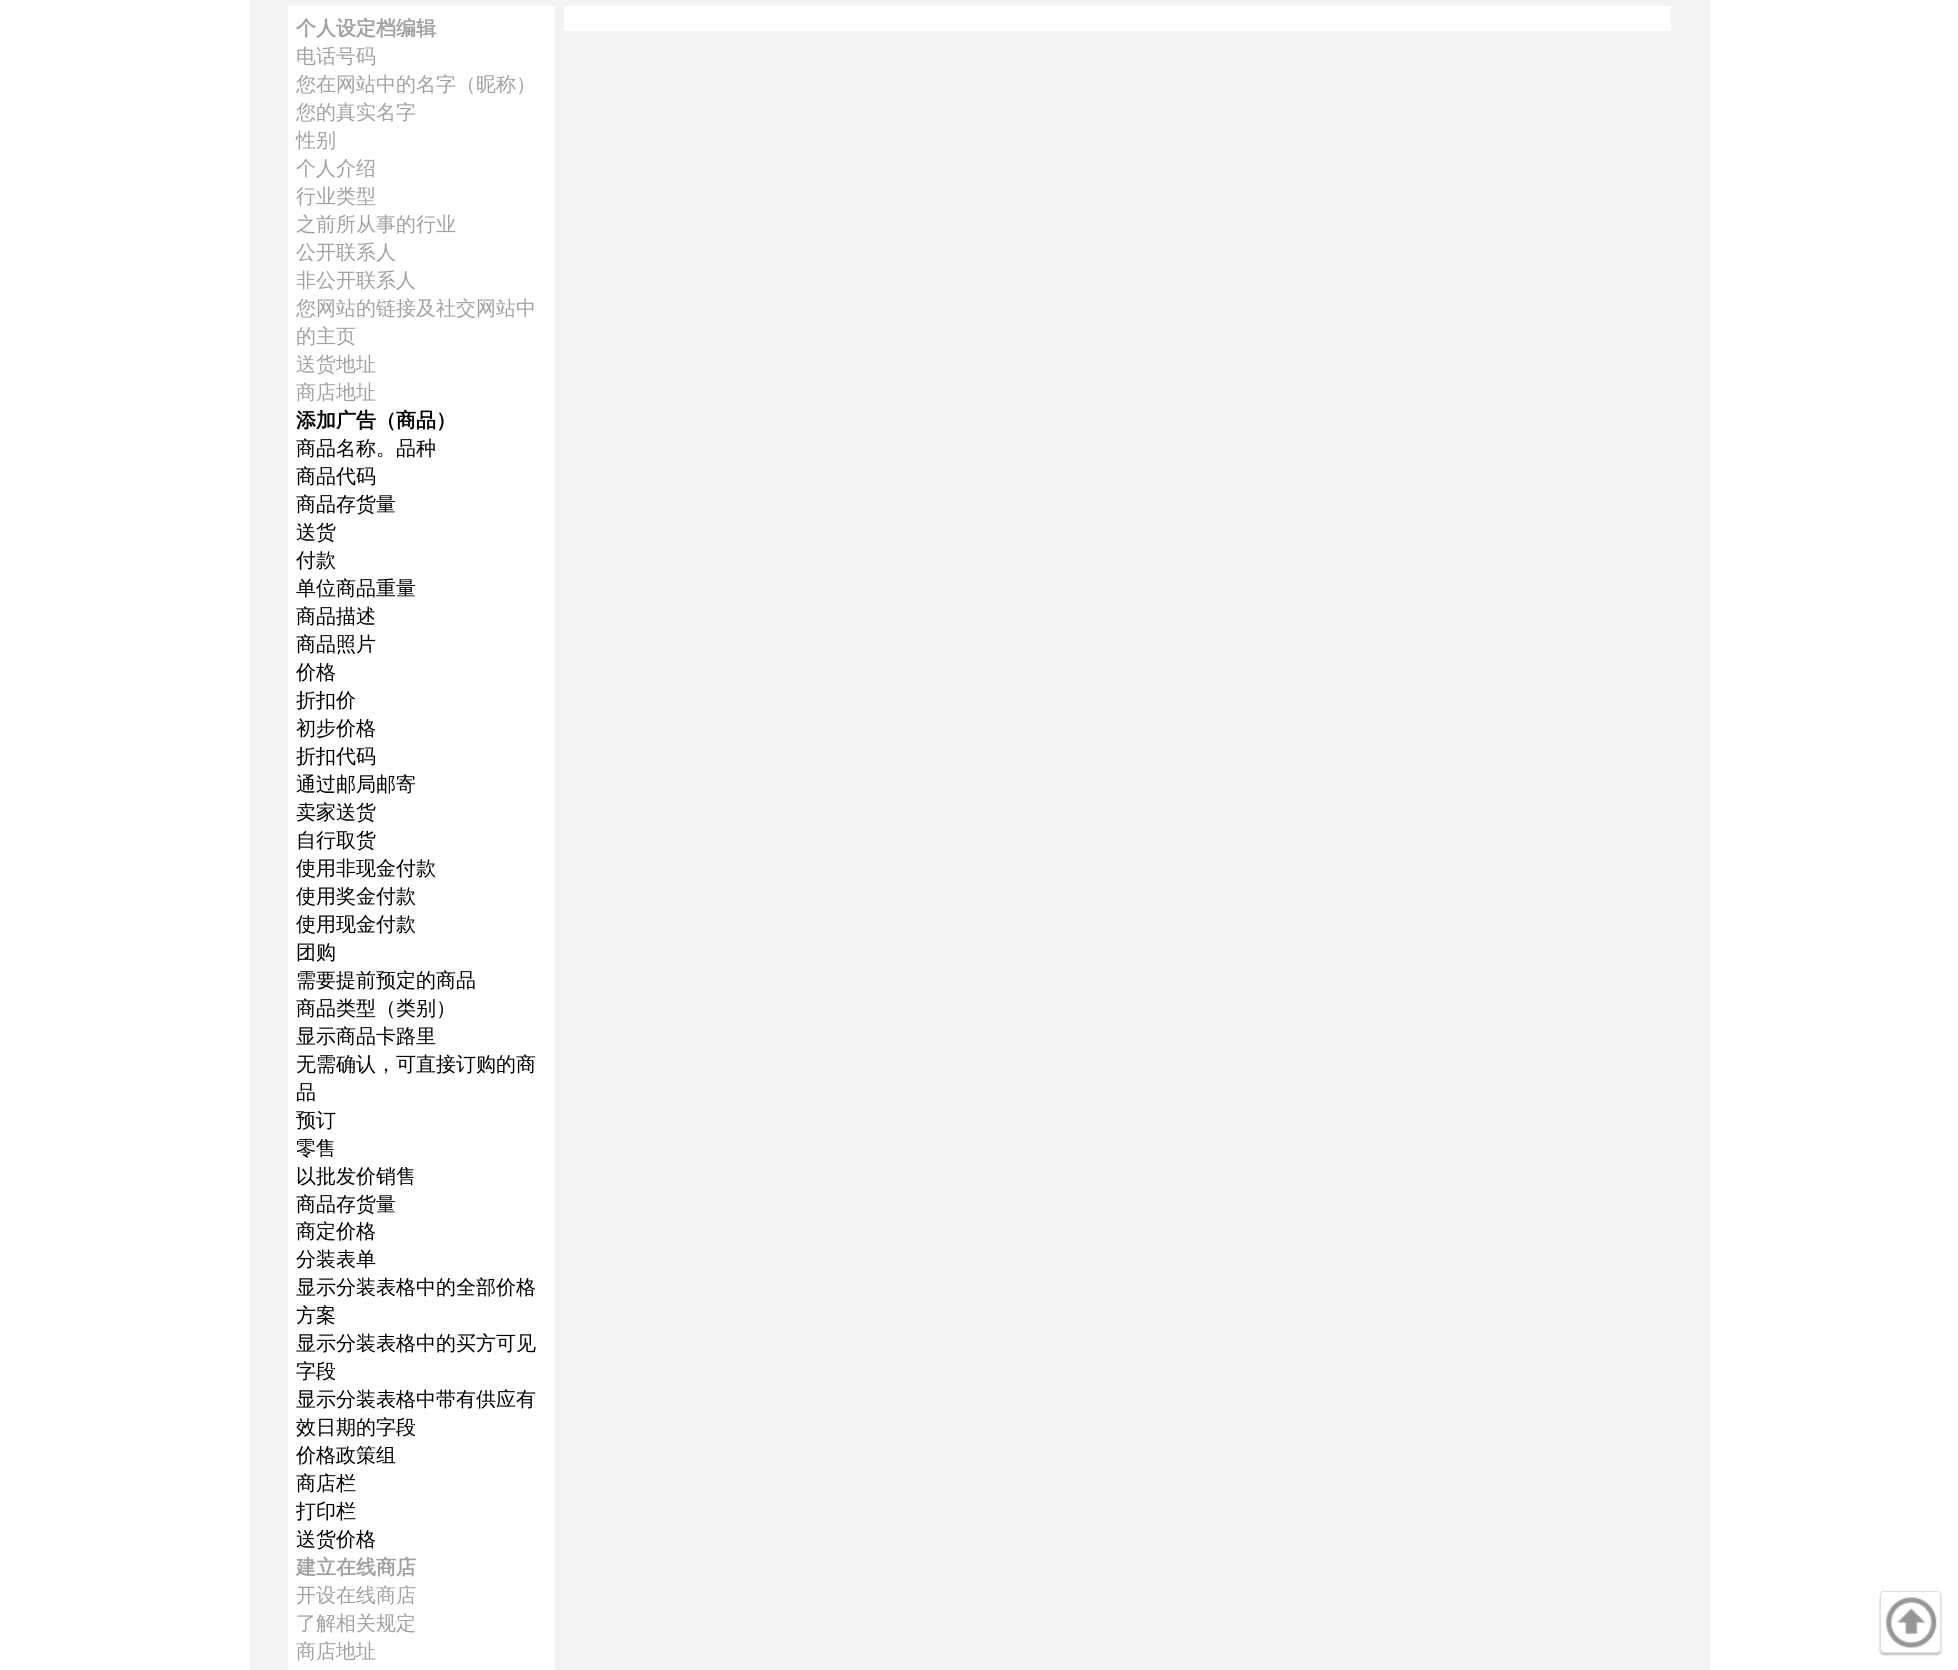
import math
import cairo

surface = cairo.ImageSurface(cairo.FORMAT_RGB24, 1958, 1670)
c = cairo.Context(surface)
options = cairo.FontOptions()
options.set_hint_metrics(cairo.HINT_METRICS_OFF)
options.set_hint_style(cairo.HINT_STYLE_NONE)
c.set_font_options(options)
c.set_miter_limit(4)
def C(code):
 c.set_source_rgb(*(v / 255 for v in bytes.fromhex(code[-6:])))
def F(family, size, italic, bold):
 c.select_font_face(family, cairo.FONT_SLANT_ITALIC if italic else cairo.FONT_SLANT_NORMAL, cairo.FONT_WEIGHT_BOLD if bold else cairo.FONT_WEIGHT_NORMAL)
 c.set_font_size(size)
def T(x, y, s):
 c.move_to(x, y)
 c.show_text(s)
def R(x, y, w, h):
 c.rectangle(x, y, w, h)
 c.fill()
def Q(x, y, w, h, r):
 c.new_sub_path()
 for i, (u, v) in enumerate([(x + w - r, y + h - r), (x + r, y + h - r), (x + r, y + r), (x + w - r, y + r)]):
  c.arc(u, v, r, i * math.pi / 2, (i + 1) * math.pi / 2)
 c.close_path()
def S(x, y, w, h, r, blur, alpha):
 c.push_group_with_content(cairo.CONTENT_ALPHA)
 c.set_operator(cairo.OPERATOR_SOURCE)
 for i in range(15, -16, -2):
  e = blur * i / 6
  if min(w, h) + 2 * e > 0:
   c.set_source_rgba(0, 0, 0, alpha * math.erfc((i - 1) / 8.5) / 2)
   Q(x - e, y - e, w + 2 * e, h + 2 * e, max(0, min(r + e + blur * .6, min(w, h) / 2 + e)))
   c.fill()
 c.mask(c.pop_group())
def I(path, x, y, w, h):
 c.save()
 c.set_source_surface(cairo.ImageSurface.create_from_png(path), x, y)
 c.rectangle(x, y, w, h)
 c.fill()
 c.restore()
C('ffffff')
c.paint()
C('f3f3f3')
R(249,0,1462,1670)
C('ffffff')
R(288,6,267,1664)
F('WenQuanYi Zen Hei',20,0,1)
C('a1a1a1')
T(296,35,'个人设定档编辑')
F('WenQuanYi Zen Hei Medium',20,0,0)
T(296,63,'电话号码')
T(296,91,'您在网站中的名字（昵称）')
T(296,119,'您的真实名字')
T(296,147,'性别')
T(296,175,'个人介绍')
T(296,203,'行业类型')
T(296,231,'之前所从事的行业')
T(296,259,'公开联系人')
T(296,287,'非公开联系人')
T(296,315,'您网站的链接及社交网站中')
T(296,343,'的主页')
T(296,371,'送货地址')
T(296,399,'商店地址')
F('WenQuanYi Zen Hei',20,0,1)
C('000000')
T(296,427,'添加广告（商品）')
F('WenQuanYi Zen Hei Medium',20,0,0)
T(296,455,'商品名称。品种')
T(296,483,'商品代码')
T(296,511,'商品存货量')
T(296,539,'送货')
T(296,567,'付款')
T(296,595,'单位商品重量')
T(296,623,'商品描述')
T(296,651,'商品照片')
T(296,679,'价格')
T(296,707,'折扣价')
T(296,735,'初步价格')
T(296,763,'折扣代码')
T(296,791,'通过邮局邮寄')
T(296,819,'卖家送货')
T(296,847,'自行取货')
T(296,875,'使用非现金付款')
T(296,903,'使用奖金付款')
T(296,931,'使用现金付款')
T(296,959,'团购')
T(296,987,'需要提前预定的商品')
T(296,1015,'商品类型（类别）')
T(296,1043,'显示商品卡路里')
T(296,1071,'无需确认，可直接订购的商')
T(296,1099,'品')
T(296,1127,'预订')
T(296,1155,'零售')
T(296,1183,'以批发价销售')
T(296,1211,'商品存货量')
T(296,1238,'商定价格')
T(296,1266,'分装表单')
T(296,1294,'显示分装表格中的全部价格')
T(296,1322,'方案')
T(296,1350,'显示分装表格中的买方可见')
T(296,1378,'字段')
T(296,1406,'显示分装表格中带有供应有')
T(296,1434,'效日期的字段')
T(296,1462,'价格政策组')
T(296,1490,'商店栏')
T(296,1518,'打印栏')
T(296,1546,'送货价格')
F('WenQuanYi Zen Hei',20,0,1)
C('a1a1a1')
T(296,1574,'建立在线商店')
F('WenQuanYi Zen Hei Medium',20,0,0)
T(296,1602,'开设在线商店')
T(296,1630,'了解相关规定')
T(296,1658,'商店地址')
C('ffffff')
R(564,6,1107,25)
C('000000')
S(1880,1594,61,61,4,1,.25)
C('ffffff')
Q(1880.5,1591.5,60,61,3.5)
c.fill_preserve()
C('e0e0e0')
c.set_line_width(1)
c.stroke()
I('1.png',1886,1597,51,51)
surface.write_to_png('o.png')
